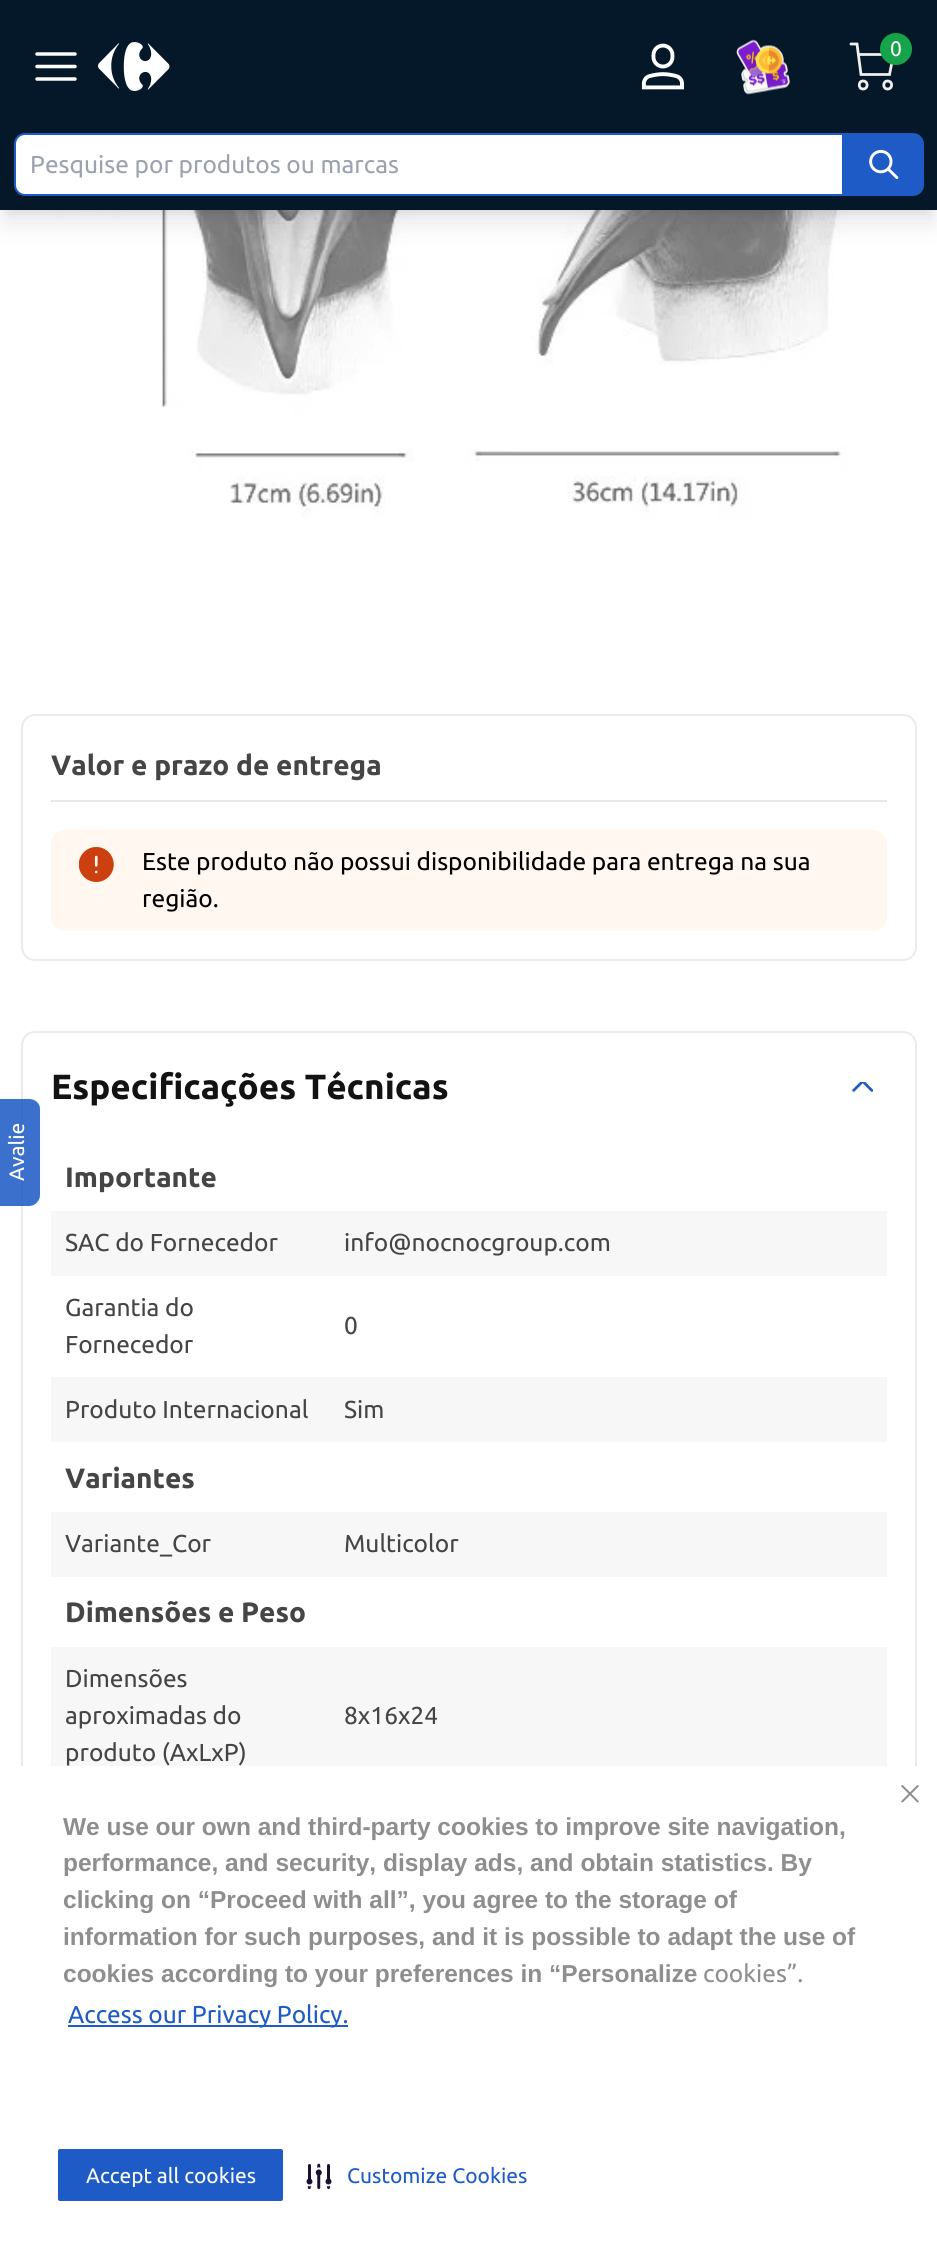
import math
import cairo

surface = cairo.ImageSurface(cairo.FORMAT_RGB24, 937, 2259)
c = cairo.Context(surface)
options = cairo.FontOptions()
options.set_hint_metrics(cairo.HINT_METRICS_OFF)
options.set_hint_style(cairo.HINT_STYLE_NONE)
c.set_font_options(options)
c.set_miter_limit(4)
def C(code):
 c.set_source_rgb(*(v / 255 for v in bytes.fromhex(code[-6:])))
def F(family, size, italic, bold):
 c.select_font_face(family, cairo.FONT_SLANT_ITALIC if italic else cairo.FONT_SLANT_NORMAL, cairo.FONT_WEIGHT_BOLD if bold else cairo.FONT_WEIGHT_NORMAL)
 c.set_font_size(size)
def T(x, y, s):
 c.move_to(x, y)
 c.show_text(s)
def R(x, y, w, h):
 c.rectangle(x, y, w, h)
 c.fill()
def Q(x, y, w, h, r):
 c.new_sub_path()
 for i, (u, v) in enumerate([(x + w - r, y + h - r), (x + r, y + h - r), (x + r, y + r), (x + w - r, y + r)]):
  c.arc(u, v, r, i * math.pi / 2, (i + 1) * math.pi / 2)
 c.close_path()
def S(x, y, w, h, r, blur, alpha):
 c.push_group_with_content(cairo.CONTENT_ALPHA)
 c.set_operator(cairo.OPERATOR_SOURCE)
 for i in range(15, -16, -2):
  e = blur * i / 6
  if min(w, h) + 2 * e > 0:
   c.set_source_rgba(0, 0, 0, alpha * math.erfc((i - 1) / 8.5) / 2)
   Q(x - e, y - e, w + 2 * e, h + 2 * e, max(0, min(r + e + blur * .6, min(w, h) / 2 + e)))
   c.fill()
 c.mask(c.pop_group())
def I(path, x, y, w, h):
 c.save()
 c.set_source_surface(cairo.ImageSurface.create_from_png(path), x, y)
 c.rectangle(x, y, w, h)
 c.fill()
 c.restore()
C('ffffff')
c.paint()
I('5.png',48,210,799,308)
C('000000')
S(7,14,924,196,0,5,.1)
S(5,23,928,199,0,13,.1)
C('041829')
R(0,0,937,210)
c.new_path()
c.move_to(37,66.5)
c.line_to(75,66.5)
c.move_to(37,54)
c.line_to(75,54)
c.move_to(37,79)
c.line_to(75,79)
C('ffffff')
c.set_line_width(3.5)
c.set_line_cap(cairo.LINE_CAP_ROUND)
c.set_line_join(cairo.LINE_JOIN_ROUND)
c.stroke()
I('1.png',98,42,72,49)
I('2.png',641,43,43,47)
I('3.png',736,39,54,56)
c.new_path()
c.move_to(863,89)
c.curve_to(868.5,89,868.5,81,863,81)
c.curve_to(858,81,858,89,863,89)
c.close_path()
c.move_to(887.5,89)
c.curve_to(893,89,893,81,887.5,81)
c.curve_to(882.5,81,882.5,89,887.5,89)
c.close_path()
c.move_to(858.5,54.5)
c.line_to(893.5,54.5)
c.line_to(889.5,74.5)
c.line_to(861,74.5)
c.line_to(857,44)
c.line_to(851,44)
C('f0f0f0')
c.set_line_width(2.8)
c.set_line_join(cairo.LINE_JOIN_MITER)
c.stroke()
C('16a34a')
c.arc(896,49,16,0,2 * math.pi)
c.fill()
F('Ubuntu',21,0,0)
C('ffffff')
T(890,56,'0')
c.new_path()
c.move_to(25,134)
c.line_to(843,134)
c.line_to(843,195)
c.line_to(25,195)
c.curve_to(19.5,195,15,190.5,15,185)
c.line_to(15,144)
c.curve_to(15,138.5,19.5,134,25,134)
c.close_path()
c.fill_preserve()
C('1e5bc6')
c.set_line_width(2)
c.set_line_cap(cairo.LINE_CAP_BUTT)
c.stroke()
F('Ubuntu',24.5,0,0)
C('9ca3af')
T(30,173,'Pesquise por produtos ou marcas')
C('1e5bc6')
c.new_path()
c.move_to(844,133)
c.line_to(913,133)
c.curve_to(919,133,924,138,924,144)
c.line_to(924,185)
c.curve_to(924,191,919,196,913,196)
c.line_to(844,196)
c.close_path()
c.fill()
I('4.png',869,149,30,30)
Q(22,1032,894,920,13)
C('ebebeb')
c.stroke()
c.set_source_rgba(0.118,0.357,0.776,0.87)
c.new_path()
c.move_to(-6,1206)
c.line_to(-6,1099)
c.line_to(29,1099)
c.curve_to(35,1099,40,1103,40,1109)
c.line_to(40,1195)
c.curve_to(40,1201,35,1206,29,1206)
c.close_path()
c.fill()
F('Ubuntu',21,0,0)
C('ffffff')
c.save()
c.translate(24,1181)
c.rotate(-90 * math.pi / 180)
T(0,0,'Avalie')
c.restore()
Q(22,715,894,245,13)
C('ebebeb')
c.stroke()
C('e5e7eb')
R(51,800,836,2)
F('Ubuntu',28,0,1)
C('454545')
T(51,775,'Valor e prazo de entrega')
C('fff7f0')
Q(51,830,836,101,14)
c.fill()
I('6.png',79,847,35,35)
F('Ubuntu',24.5,0,0)
C('000000')
T(142,870,'Este produto não possui disponibilidade para entrega na sua')
T(142,907,'região.')
F('Ubuntu',35,0,1)
C('121212')
T(51,1099,'Especificações Técnicas')
I('7.png',852,1082,21,10)
F('Ubuntu',28,0,1)
C('454545')
T(65,1187,'Importante')
C('f7f7f7')
R(51,1211,836,65)
F('Ubuntu',24.5,0,0)
C('454545')
T(65,1251,'SAC do Fornecedor')
T(344,1251,'info@nocnocgroup.com')
T(65,1316,'Garantia do')
T(65,1353,'Fornecedor')
T(344,1334,'0')
C('f7f7f7')
R(51,1377,836,65)
C('454545')
T(65,1418,'Produto Internacional')
T(344,1418,'Sim')
F('Ubuntu',28,0,1)
T(65,1488,'Variantes')
C('f7f7f7')
R(51,1512,836,65)
F('Ubuntu',24.5,0,0)
C('454545')
T(65,1552,'Variante_Cor')
T(344,1552,'Multicolor')
F('Ubuntu',28,0,1)
T(65,1622,'Dimensões e Peso')
C('f7f7f7')
R(51,1647,836,119)
F('Ubuntu',24.5,0,0)
C('454545')
T(65,1687,'Dimensões')
T(65,1724,'aproximadas do')
T(65,1761,'produto (AxLxP)')
T(344,1724,'8x16x24')
C('ffffff')
R(21,1766,896,187)
F('Liberation Sans',24.5,0,1)
C('8e8e8e')
T(63,1835,'We use our own and third-party cookies to improve site navigation,')
T(63,1871,'performance, and security, display ads, and obtain statistics. By')
T(63,1908,'clicking on “Proceed with all”, you agree to the storage of')
T(63,1945,'information for such purposes, and it is possible to adapt the use of')
T(63,1982,'cookies according to your preferences in “Personalize')
F('Ubuntu',24.5,0,0)
T(703,1982,'cookies”.')
C('1e5bc6')
R(68,2025,280,2)
T(68,2023,'Access our Privacy Policy.')
I('8.png',901,1785,18,18)
Q(57,2148,227,54,3)
c.fill_preserve()
C('ffffff')
c.stroke()
F('Ubuntu',21,0,0)
T(86,2183,'Accept all cookies')
I('9.png',306,2163,26,26)
C('1e5bc6')
T(347,2183,'Customize Cookies')
surface.write_to_png('o.png')
